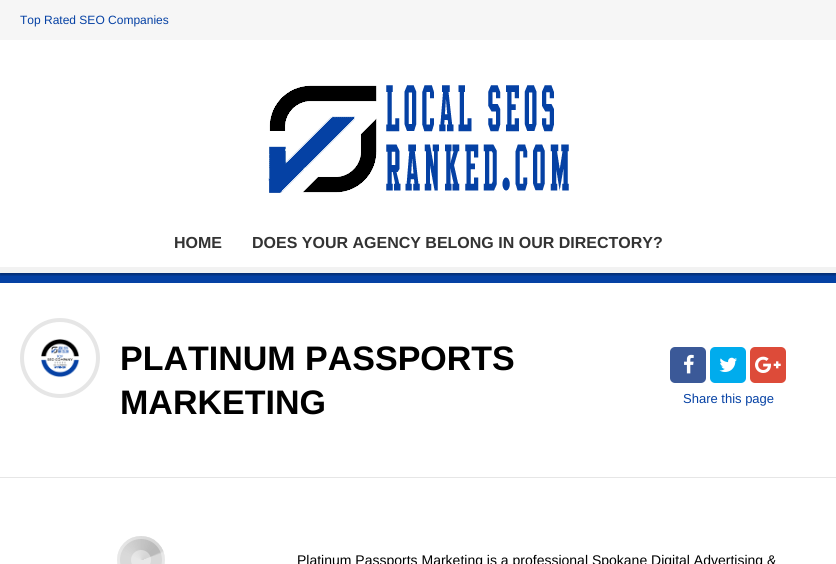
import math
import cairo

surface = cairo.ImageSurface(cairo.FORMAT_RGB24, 836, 564)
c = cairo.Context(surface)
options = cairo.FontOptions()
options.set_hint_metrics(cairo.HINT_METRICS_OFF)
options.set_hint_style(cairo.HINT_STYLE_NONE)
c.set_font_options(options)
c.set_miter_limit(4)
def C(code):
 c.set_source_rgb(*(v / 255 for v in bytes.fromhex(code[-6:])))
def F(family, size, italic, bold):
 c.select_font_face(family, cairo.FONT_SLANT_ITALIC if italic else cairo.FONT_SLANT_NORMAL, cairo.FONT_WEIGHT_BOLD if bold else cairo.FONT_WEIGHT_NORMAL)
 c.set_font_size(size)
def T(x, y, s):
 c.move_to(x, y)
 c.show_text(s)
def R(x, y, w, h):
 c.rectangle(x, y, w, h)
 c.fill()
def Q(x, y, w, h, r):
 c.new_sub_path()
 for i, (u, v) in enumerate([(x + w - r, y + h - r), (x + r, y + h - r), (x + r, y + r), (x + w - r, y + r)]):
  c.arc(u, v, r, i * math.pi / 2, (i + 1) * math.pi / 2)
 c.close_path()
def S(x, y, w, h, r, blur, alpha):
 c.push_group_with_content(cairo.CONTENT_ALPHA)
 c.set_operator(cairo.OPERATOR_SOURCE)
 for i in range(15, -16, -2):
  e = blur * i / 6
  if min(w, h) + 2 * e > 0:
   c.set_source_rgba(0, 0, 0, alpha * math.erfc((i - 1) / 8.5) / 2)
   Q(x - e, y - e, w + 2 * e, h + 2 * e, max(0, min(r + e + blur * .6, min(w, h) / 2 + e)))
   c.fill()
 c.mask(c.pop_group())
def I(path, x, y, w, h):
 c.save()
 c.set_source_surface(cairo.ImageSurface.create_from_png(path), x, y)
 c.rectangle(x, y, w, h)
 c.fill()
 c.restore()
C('ffffff')
c.paint()
C('0541a4')
R(0,273,836,10)
c.save()
c.rectangle(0,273,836,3)
c.clip()
C('000000')
S(0,2,836,273,0,1,.3)
c.restore()
C('f2f2f2')
R(0,267,836,6)
C('f6f6f6')
R(0,0,836,40)
F('Liberation Sans',12,0,0)
C('0541a4')
T(20,24,'Top Rated SEO Companies')
I('1.png',268,85,301,108)
F('Liberation Sans',16,0,1)
C('333333')
T(174,248,'HOME')
T(252,248,'DOES YOUR AGENCY BELONG IN OUR DIRECTORY?')
C('e6e6e6')
R(0,477,836,1)
c.new_path()
c.arc(60,358,38,0,2 * math.pi)
c.set_line_width(4)
c.stroke()
I('2.png',41,339,39,39)
F('Liberation Sans',34,0,1)
C('000000')
T(120,370,'PLATINUM PASSPORTS')
T(120,414,'MARKETING')
C('3b5998')
Q(670,347,36,36,5)
c.fill()
I('3.png',684,354,10,20)
C('00aced')
Q(710,347,36,36,5)
c.fill()
I('4.png',719,357,18,15)
C('dd4b39')
Q(750,347,36,36,5)
c.fill()
I('5.png',755,356,26,17)
F('Liberation Sans',13,0,0)
C('0541a4')
T(683,403,'Share this page')
I('6.png',117,536,48,28)
c.arc(141,560,22.5,0,2 * math.pi)
c.set_source_rgba(1,1,1,0.4)
c.set_line_width(3)
c.stroke()
c.arc(141,560,10,0,2 * math.pi)
c.fill()
F('Liberation Sans',14,0,0)
C('000000')
T(297,565,'Platinum Passports Marketing is a professional Spokane Digital Advertising &')
surface.write_to_png('o.png')
